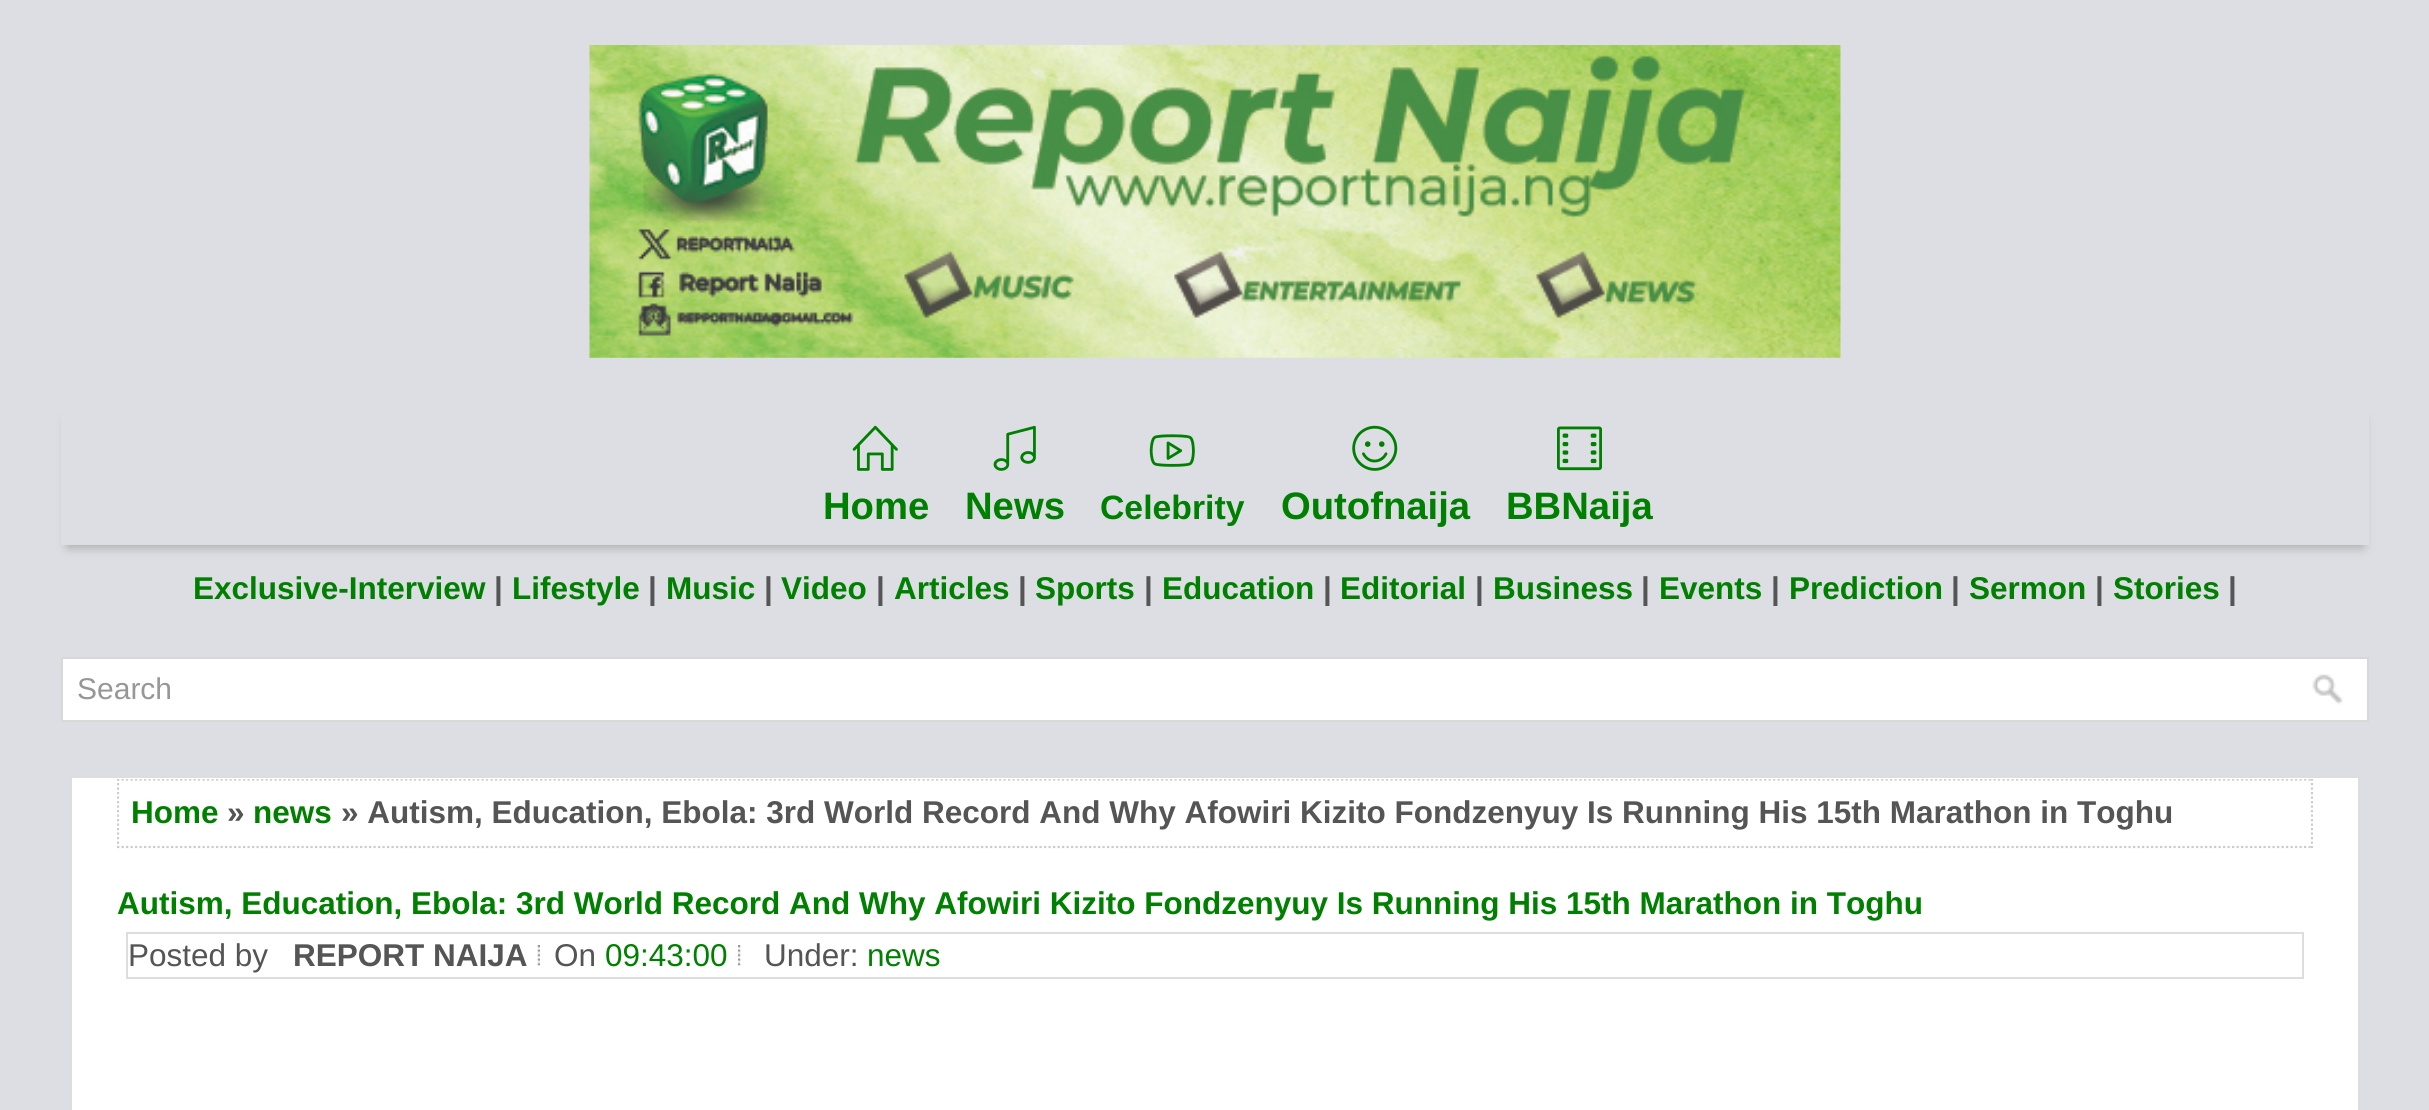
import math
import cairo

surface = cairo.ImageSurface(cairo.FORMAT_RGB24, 2429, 1110)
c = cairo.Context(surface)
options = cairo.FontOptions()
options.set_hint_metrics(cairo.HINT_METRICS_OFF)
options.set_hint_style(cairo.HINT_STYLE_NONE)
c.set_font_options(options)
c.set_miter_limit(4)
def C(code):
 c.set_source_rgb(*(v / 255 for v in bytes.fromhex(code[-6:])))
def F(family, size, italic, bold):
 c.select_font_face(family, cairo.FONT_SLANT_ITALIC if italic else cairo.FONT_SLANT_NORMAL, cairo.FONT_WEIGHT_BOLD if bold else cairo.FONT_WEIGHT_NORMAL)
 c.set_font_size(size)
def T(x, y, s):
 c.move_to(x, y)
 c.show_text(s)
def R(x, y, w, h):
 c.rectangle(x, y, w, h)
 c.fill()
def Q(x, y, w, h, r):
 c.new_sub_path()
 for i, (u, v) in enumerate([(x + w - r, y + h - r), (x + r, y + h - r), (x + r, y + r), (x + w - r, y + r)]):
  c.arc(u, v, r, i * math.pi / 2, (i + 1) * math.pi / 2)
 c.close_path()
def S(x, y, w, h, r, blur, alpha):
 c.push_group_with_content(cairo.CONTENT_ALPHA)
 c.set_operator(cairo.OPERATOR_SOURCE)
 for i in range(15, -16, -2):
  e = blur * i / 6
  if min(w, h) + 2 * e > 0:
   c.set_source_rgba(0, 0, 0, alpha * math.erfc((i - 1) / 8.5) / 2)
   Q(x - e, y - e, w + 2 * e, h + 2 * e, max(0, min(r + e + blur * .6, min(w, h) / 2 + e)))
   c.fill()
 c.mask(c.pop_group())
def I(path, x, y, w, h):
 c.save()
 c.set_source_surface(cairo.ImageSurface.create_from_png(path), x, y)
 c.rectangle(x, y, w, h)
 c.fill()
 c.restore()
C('dcdee3')
c.paint()
I('1.png',589,45,1252,313)
c.save()
c.set_fill_rule(cairo.FILL_RULE_EVEN_ODD)
c.new_path()
c.move_to(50,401)
c.line_to(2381,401)
c.line_to(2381,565)
c.line_to(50,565)
c.close_path()
c.move_to(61,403)
c.line_to(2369,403)
c.line_to(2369,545)
c.line_to(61,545)
c.close_path()
c.clip()
C('a7a6a6')
S(68,419,2295,128,0,5.5,1)
c.restore()
I('2.png',852,425,46,46)
F('Liberation Sans',38.25,0,1)
C('008000')
T(823,519,'Home')
I('3.png',993,425,43,46)
T(965,519,'News')
I('4.png',1149,434,46,33)
F('Liberation Sans',33.75,0,1)
T(1100,519,'Celebrity')
I('5.png',1352,425,46,46)
F('Liberation Sans',38.25,0,1)
T(1281,519,'Outofnaija')
I('6.png',1557,426,45,45)
T(1506,519,'BBNaija')
F('Liberation Sans',31.5,0,1)
T(193,599,'Exclusive-Interview')
C('555555')
T(494,599,'|')
C('008000')
T(512,599,'Lifestyle')
C('555555')
T(648,599,'|')
C('008000')
T(666,599,'Music')
C('555555')
T(764,599,'|')
C('008000')
T(781,599,'Video')
C('555555')
T(876,599,'|')
C('008000')
T(894,599,'Articles')
C('555555')
T(1018,599,'|')
C('008000')
T(1035,599,'Sports')
C('555555')
T(1144,599,'|')
C('008000')
T(1162,599,'Education')
C('555555')
T(1323,599,'|')
C('008000')
T(1340,599,'Editorial')
C('555555')
T(1475,599,'|')
C('008000')
T(1493,599,'Business')
C('555555')
T(1641,599,'|')
C('008000')
T(1659,599,'Events')
C('555555')
T(1771,599,'|')
C('008000')
T(1789,599,'Prediction')
C('555555')
T(1951,599,'|')
C('008000')
T(1969,599,'Sermon')
C('555555')
T(2095,599,'|')
C('008000')
T(2113,599,'Stories')
C('555555')
T(2228,599,'|')
C('ffffff')
R(63,659,2304,61)
I('7.png',2312,674,31,31)
c.rectangle(62,658,2306,63)
C('d8d8d8')
c.stroke()
F('Liberation Sans',30,0,0)
C('979797')
T(77,699,'Search')
C('ffffff')
c.rectangle(71,777,2288,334)
c.fill_preserve()
C('dddddd')
c.stroke()
c.save()
c.rectangle(117,779,2196,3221)
c.clip()
c.new_path()
c.move_to(117,779.5)
c.line_to(2313,779.5)
C('cccccc')
c.set_line_width(2.2)
c.set_dash([2.25,2.25])
c.stroke()
c.new_path()
c.move_to(2312,778.5)
c.line_to(2312,848)
c.stroke()
c.restore()
c.new_path()
c.move_to(117,847)
c.line_to(2313,847)
C('cccccc')
c.set_line_width(2.2)
c.set_dash([2.25,2.25])
c.stroke()
c.save()
c.rectangle(117,779,2196,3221)
c.clip()
c.new_path()
c.move_to(118,778.5)
c.line_to(118,848)
c.stroke()
c.restore()
F('Liberation Sans',31.5,0,1)
C('008000')
T(131,823,'Home')
C('555555')
T(227,823,'»')
C('008000')
T(253,823,'news')
C('555555')
T(341,823,'» Autism, Education, Ebola: 3rd World Record And Why Afowiri Kizito Fondzenyuy Is Running His 15th Marathon in Toghu')
C('008000')
T(117,914,'Autism, Education, Ebola: 3rd World Record And Why Afowiri Kizito Fondzenyuy Is Running His 15th Marathon in Toghu')
c.rectangle(127,933,2176,45)
C('dddddd')
c.set_line_width(2)
c.set_dash([])
c.stroke()
F('Liberation Sans',31.5,0,0)
C('555555')
T(128,966,'Posted by')
F('Liberation Sans',31.5,0,1)
T(293,966,'REPORT NAIJA')
I('8.png',537,945,3,21)
F('Liberation Sans',31.5,0,0)
T(554,966,'On')
C('008000')
T(605,966,'09:43:00')
I('9.png',738,945,3,21)
C('555555')
T(764,966,'Under:')
C('008000')
T(867,966,'news')
surface.write_to_png('o.png')
